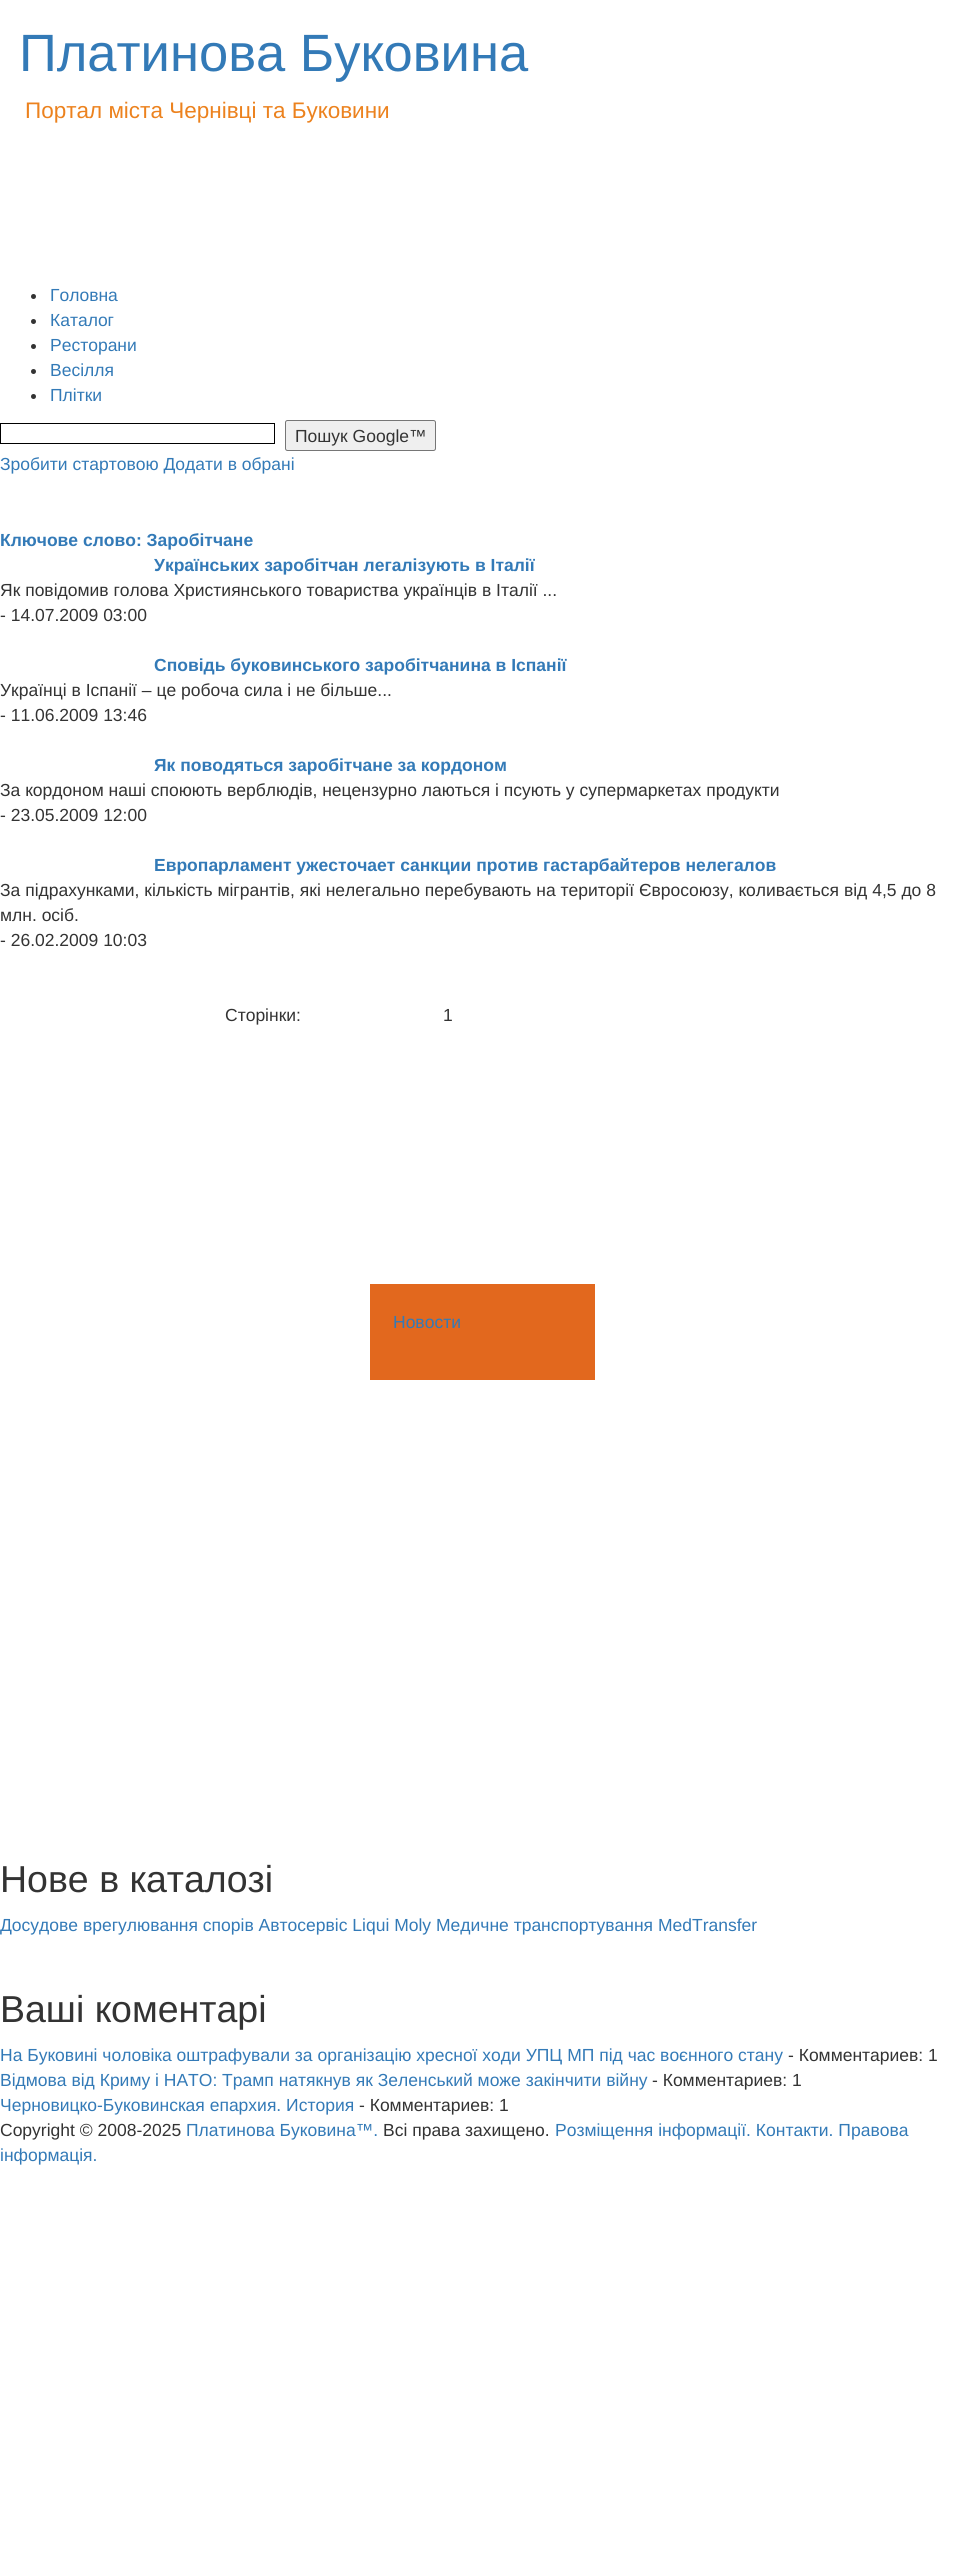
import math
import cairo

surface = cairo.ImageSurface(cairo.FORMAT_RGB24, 965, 2560)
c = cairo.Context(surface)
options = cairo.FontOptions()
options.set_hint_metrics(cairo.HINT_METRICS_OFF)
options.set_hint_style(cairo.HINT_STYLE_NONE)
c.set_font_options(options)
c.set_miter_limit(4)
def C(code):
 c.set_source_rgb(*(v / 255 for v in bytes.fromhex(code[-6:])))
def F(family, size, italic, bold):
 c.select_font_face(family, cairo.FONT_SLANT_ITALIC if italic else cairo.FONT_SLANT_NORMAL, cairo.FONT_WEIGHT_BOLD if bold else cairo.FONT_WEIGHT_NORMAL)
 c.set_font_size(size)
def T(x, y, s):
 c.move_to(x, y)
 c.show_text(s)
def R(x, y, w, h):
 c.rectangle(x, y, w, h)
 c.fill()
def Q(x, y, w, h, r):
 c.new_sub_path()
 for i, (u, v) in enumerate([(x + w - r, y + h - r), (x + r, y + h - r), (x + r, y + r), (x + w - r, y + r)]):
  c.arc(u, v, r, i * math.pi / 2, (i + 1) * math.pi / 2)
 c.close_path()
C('ffffff')
c.paint()
F('Liberation Sans',52.5,0,0)
C('337ab7')
T(19,71,'Платинова Буковина')
F('Liberation Sans',22.5,0,0)
C('ec821e')
T(25,118,'Портал міста Чернівці та Буковини')
C('333333')
c.new_path()
c.arc(33.5,296.5,2.5,0,2 * math.pi)
c.fill()
F('Liberation Sans',17.5,0,0)
C('337ab7')
T(50,301,'Головна')
C('333333')
c.new_path()
c.arc(33.5,321.5,2.5,0,2 * math.pi)
c.fill()
C('337ab7')
T(50,326,'Каталог')
C('333333')
c.new_path()
c.arc(33.5,346.5,2.5,0,2 * math.pi)
c.fill()
C('337ab7')
T(50,351,'Ресторани')
C('333333')
c.new_path()
c.arc(33.5,371.5,2.5,0,2 * math.pi)
c.fill()
C('337ab7')
T(50,376,'Весілля')
C('333333')
c.new_path()
c.arc(33.5,396.5,2.5,0,2 * math.pi)
c.fill()
C('337ab7')
T(50,401,'Плітки')
c.rectangle(.5,423.5,274,20)
C('000000')
c.set_line_width(1)
c.stroke()
C('efefef')
Q(285.5,420.5,150,30,2)
c.fill_preserve()
C('767676')
c.stroke()
C('333333')
T(295,442,'Пошук Google™')
C('337ab7')
T(0,470,'Зробити стартовою Додати в обрані')
F('Liberation Sans',17.5,0,1)
T(0,546,'Ключове слово: Заробітчане')
T(154,571,'Українських заробітчан легалізують в Італії')
F('Liberation Sans',17.5,0,0)
C('333333')
T(0,596,'Як повідомив голова Християнського товариства українців в Італії ...')
T(0,621,'- 14.07.2009 03:00')
F('Liberation Sans',17.5,0,1)
C('337ab7')
T(154,671,'Сповідь буковинського заробітчанина в Іспанії')
F('Liberation Sans',17.5,0,0)
C('333333')
T(0,696,'Українці в Іспанії – це робоча сила і не більше...')
T(0,721,'- 11.06.2009 13:46')
F('Liberation Sans',17.5,0,1)
C('337ab7')
T(154,771,'Як поводяться заробітчане за кордоном')
F('Liberation Sans',17.5,0,0)
C('333333')
T(0,796,'За кордоном наші споюють верблюдів, нецензурно лаються і псують у супермаркетах продукти')
T(0,821,'- 23.05.2009 12:00')
F('Liberation Sans',17.5,0,1)
C('337ab7')
T(154,871,'Европарламент ужесточает санкции против гастарбайтеров нелегалов')
F('Liberation Sans',17.5,0,0)
C('333333')
T(0,896,'За підрахунками, кількість мігрантів, які нелегально перебувають на території Євросоюзу, коливається від 4,5 до 8')
T(0,921,'млн. осіб.')
T(0,946,'- 26.02.2009 10:03')
T(225,1021,'Сторінки:')
T(443,1021,'1')
C('e2681e')
R(370,1284,225,96)
C('337ab7')
T(393,1328,'Новости')
F('Liberation Sans',37.5,0,0)
C('333333')
T(0,1892,'Нове в каталозі')
F('Liberation Sans',17.5,0,0)
C('337ab7')
T(0,1931,'Досудове врегулювання спорів Автосервіс Liqui Moly Медичне транспортування MedTransfer')
F('Liberation Sans',37.5,0,0)
C('333333')
T(0,2022,'Ваші коментарі')
F('Liberation Sans',17.5,0,0)
C('337ab7')
T(0,2061,'На Буковині чоловіка оштрафували за організацію хресної ходи УПЦ МП під час воєнного стану')
C('333333')
T(788,2061,'- Комментариев: 1')
C('337ab7')
T(0,2086,'Відмова від Криму і НАТО: Трамп натякнув як Зеленський може закінчити війну')
C('333333')
T(652,2086,'- Комментариев: 1')
C('337ab7')
T(0,2111,'Черновицко-Буковинская епархия. История')
C('333333')
T(359,2111,'- Комментариев: 1')
T(0,2136,'Copyright © 2008-2025')
C('337ab7')
T(186,2136,'Платинова Буковина™.')
C('333333')
T(383,2136,'Всі права захищено.')
C('337ab7')
T(555,2136,'Розміщення інформації. Контакти. Правова')
T(0,2161,'інформація.')
surface.write_to_png('o.png')
